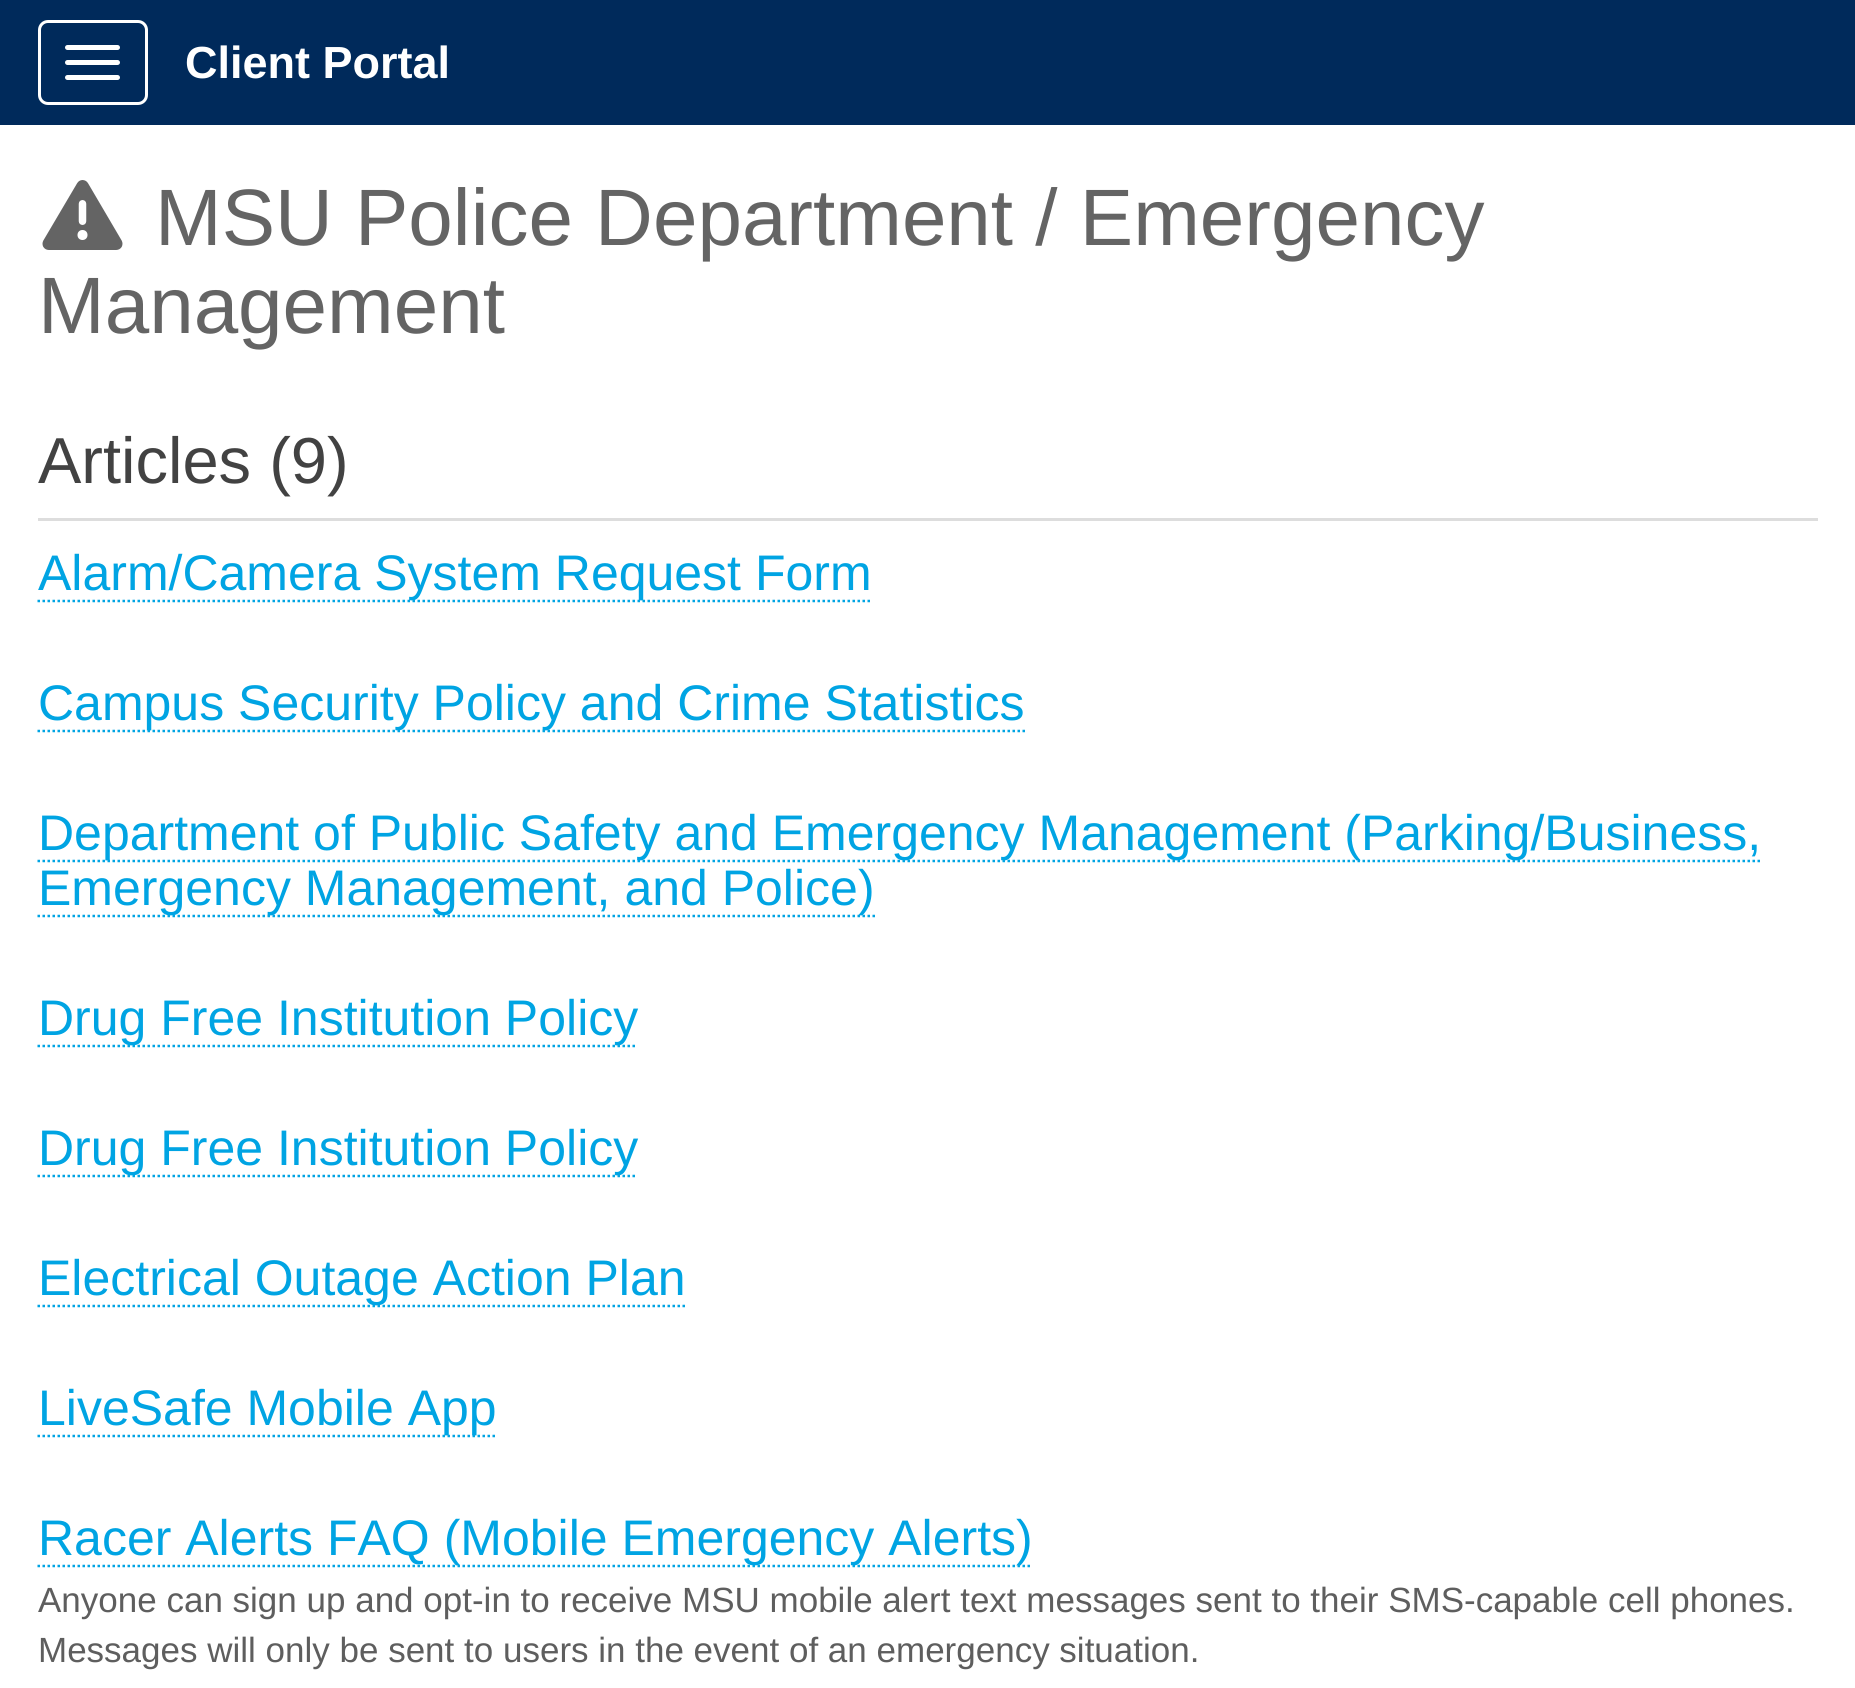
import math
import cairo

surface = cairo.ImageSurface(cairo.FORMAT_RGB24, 1855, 1688)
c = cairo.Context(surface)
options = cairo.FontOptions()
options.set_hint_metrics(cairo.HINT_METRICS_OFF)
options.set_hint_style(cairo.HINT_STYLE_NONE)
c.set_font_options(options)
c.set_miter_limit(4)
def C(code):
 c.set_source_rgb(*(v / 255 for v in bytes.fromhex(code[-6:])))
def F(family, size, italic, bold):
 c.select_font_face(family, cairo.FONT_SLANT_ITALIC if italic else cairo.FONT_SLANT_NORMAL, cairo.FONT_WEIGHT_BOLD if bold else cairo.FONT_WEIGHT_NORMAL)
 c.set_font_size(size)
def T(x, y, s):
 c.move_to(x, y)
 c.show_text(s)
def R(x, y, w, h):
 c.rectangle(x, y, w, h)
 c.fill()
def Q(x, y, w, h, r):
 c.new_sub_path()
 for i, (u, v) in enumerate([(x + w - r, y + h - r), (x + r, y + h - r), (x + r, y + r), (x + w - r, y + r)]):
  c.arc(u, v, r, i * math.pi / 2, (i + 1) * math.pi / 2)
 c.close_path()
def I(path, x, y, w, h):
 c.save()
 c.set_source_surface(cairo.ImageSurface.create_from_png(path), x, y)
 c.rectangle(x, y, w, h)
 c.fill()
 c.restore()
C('ffffff')
c.paint()
C('002a5b')
R(0,0,1855,125)
Q(39.5,21.5,107,82,8.5)
C('ffffff')
c.set_line_width(3)
c.stroke()
Q(65,45,55,5,2.5)
c.fill()
Q(65,60,55,5,2.5)
c.fill()
Q(65,75,55,5,2.5)
c.fill()
F('Liberation Sans',45,0,1)
T(185,78,'Client Portal')
I('1.png',42,180,81,70)
F('Liberation Sans',80,0,0)
C('646464')
T(155,245,'MSU Police Department / Emergency')
T(38,333,'Management')
C('dddddd')
R(38,518,1780,3)
F('Liberation Sans',65,0,0)
C('424242')
T(38,483,'Articles (9)')
c.new_path()
c.move_to(37.5,601)
c.line_to(870,601)
C('00a4e3')
c.set_line_width(2.5)
c.set_dash([2.5,2.5])
c.stroke()
F('Liberation Sans',50,0,0)
T(38,590,'Alarm/Camera System Request Form')
c.new_path()
c.move_to(37.5,731)
c.line_to(1025,731)
c.stroke()
T(38,720,'Campus Security Policy and Crime Statistics')
c.new_path()
c.move_to(37.5,861)
c.line_to(1760,861)
c.stroke()
T(38,850,'Department of Public Safety and Emergency Management (Parking/Business,')
c.new_path()
c.move_to(37.5,916)
c.line_to(875,916)
c.stroke()
T(38,905,'Emergency Management, and Police)')
c.new_path()
c.move_to(37.5,1046)
c.line_to(637.5,1046)
c.stroke()
T(38,1035,'Drug Free Institution Policy')
c.new_path()
c.move_to(37.5,1176)
c.line_to(637.5,1176)
c.stroke()
T(38,1165,'Drug Free Institution Policy')
c.new_path()
c.move_to(37.5,1306)
c.line_to(685,1306)
c.stroke()
T(38,1295,'Electrical Outage Action Plan')
c.new_path()
c.move_to(37.5,1436)
c.line_to(495,1436)
c.stroke()
T(38,1425,'LiveSafe Mobile App')
c.new_path()
c.move_to(37.5,1566)
c.line_to(1032.5,1566)
c.stroke()
T(38,1555,'Racer Alerts FAQ (Mobile Emergency Alerts)')
F('Liberation Sans',35,0,0)
C('5e5e5e')
T(38,1612,'Anyone can sign up and opt-in to receive MSU mobile alert text messages sent to their SMS-capable cell phones.')
T(38,1662,'Messages will only be sent to users in the event of an emergency situation.')
surface.write_to_png('o.png')
